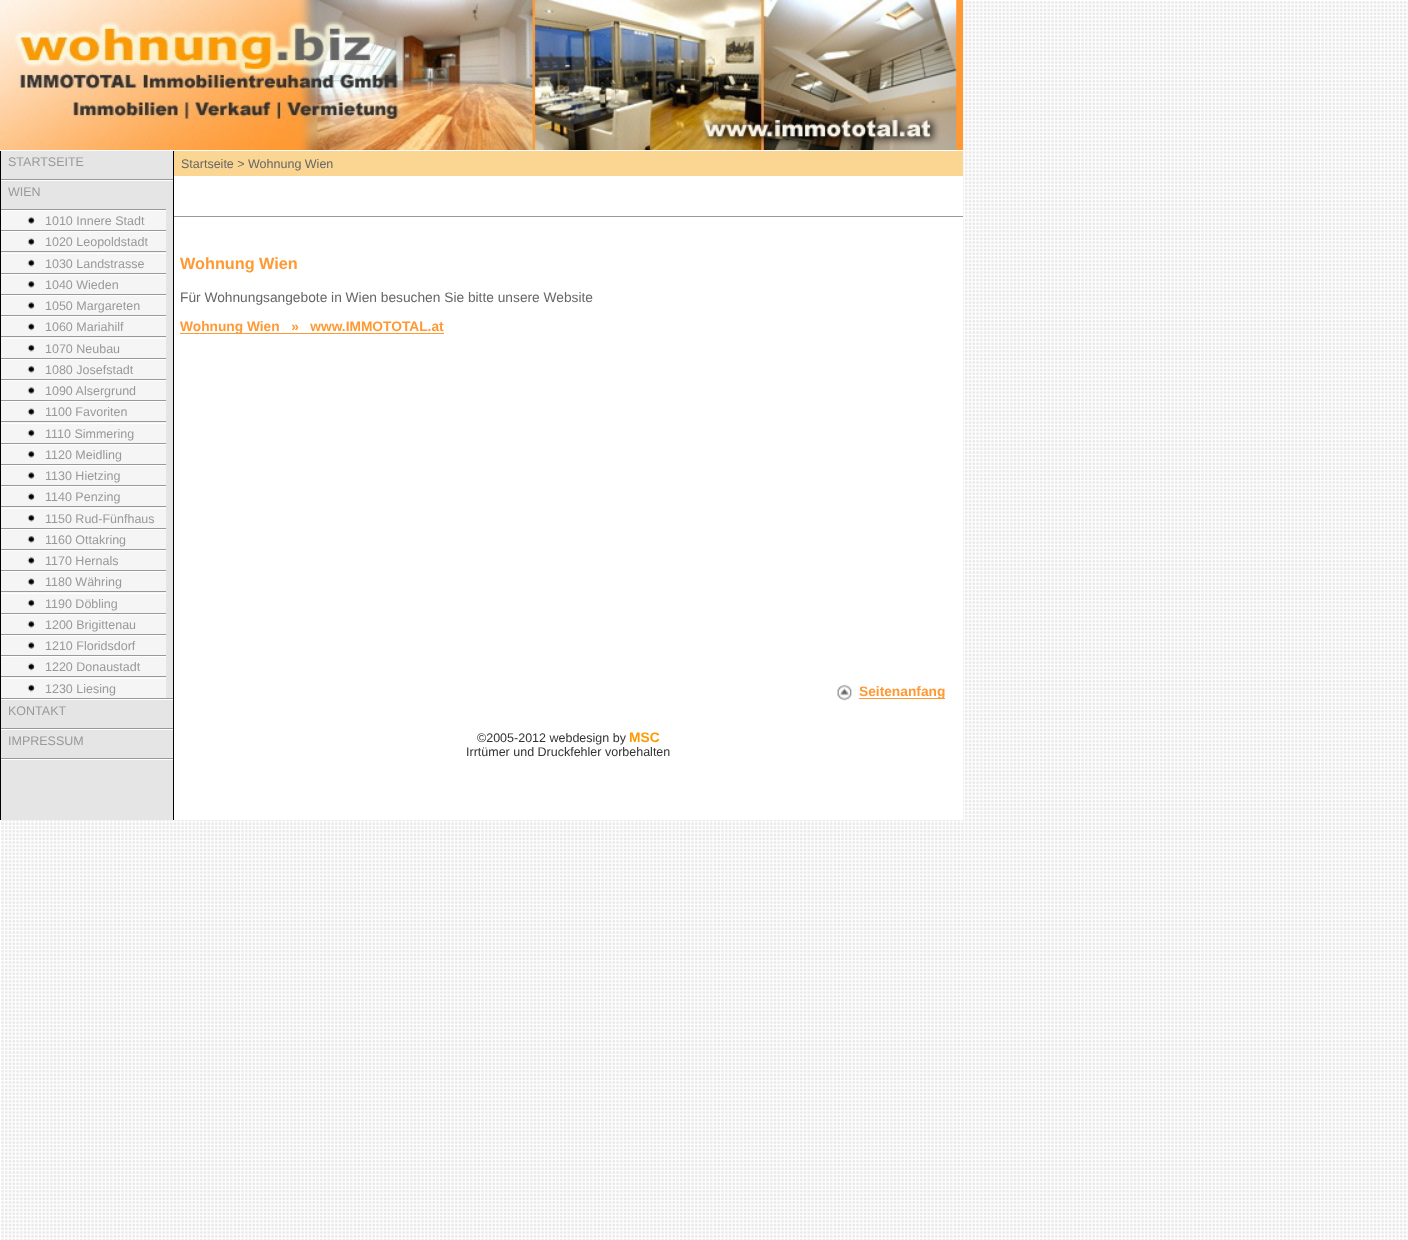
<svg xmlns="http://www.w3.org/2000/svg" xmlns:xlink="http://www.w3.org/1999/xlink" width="1408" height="1240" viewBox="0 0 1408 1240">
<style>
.cls-1{font:12.5px Liberation Sans;fill:#999999}
.cls-2{font:12.5px Liberation Sans;fill:#666666}
.cls-3{font:bold 16.25px Liberation Sans;fill:#ff9933}
.cls-4{font:13.75px Liberation Sans;fill:#666666}
.cls-5{font:bold 13.75px Liberation Sans;fill:#ff9933}
.cls-6{font:12.5px Liberation Sans;fill:#333333}
.cls-7{font:bold 13.75px Liberation Sans;fill:#ff9900}
</style>
<rect width="100%" height="100%" fill="#ffffff"/>
<image xlink:href="image0.png" x="1" y="1" width="1407" height="1239"/>
<rect fill="#ff9933" x="956" y="0" width="7" height="150"/>
<image xlink:href="image1.png" x="0" y="0" width="957" height="150"/>
<rect fill="#ffffff" x="0" y="150" width="963" height="1"/>
<rect fill="#000000" x="0" y="151" width="1" height="669"/>
<rect fill="#e5e5e5" x="1" y="151" width="172" height="669"/>
<rect fill="#999999" x="1" y="179" width="172" height="1"/>
<rect fill="#ffffff" x="1" y="180" width="172" height="1"/>
<rect fill="#f5f5f5" x="1" y="211" width="165" height="487"/>
<rect fill="#999999" x="1" y="209" width="165" height="1"/>
<rect fill="#ffffff" x="1" y="210" width="165" height="1"/>
<image xlink:href="image2.png" x="27" y="217" width="8" height="7"/>
<rect fill="#999999" x="1" y="230" width="165" height="1"/>
<rect fill="#ffffff" x="1" y="231" width="165" height="1"/>
<image xlink:href="image3.png" x="27" y="238" width="8" height="8"/>
<rect fill="#999999" x="1" y="251" width="165" height="1"/>
<rect fill="#ffffff" x="1" y="253" width="165" height="1"/>
<image xlink:href="image4.png" x="27" y="259" width="8" height="8"/>
<rect fill="#999999" x="1" y="273" width="165" height="1"/>
<rect fill="#ffffff" x="1" y="274" width="165" height="1"/>
<image xlink:href="image5.png" x="27" y="281" width="9" height="7"/>
<rect fill="#999999" x="1" y="294" width="165" height="1"/>
<rect fill="#ffffff" x="1" y="295" width="165" height="1"/>
<image xlink:href="image2.png" x="27" y="302" width="8" height="7"/>
<rect fill="#999999" x="1" y="315" width="165" height="1"/>
<rect fill="#ffffff" x="1" y="316" width="165" height="1"/>
<image xlink:href="image3.png" x="27" y="323" width="8" height="8"/>
<rect fill="#999999" x="1" y="336" width="165" height="1"/>
<rect fill="#ffffff" x="1" y="338" width="165" height="1"/>
<image xlink:href="image4.png" x="27" y="344" width="8" height="8"/>
<rect fill="#999999" x="1" y="358" width="165" height="1"/>
<rect fill="#ffffff" x="1" y="359" width="165" height="1"/>
<image xlink:href="image5.png" x="27" y="366" width="9" height="7"/>
<rect fill="#999999" x="1" y="379" width="165" height="1"/>
<rect fill="#ffffff" x="1" y="380" width="165" height="1"/>
<image xlink:href="image2.png" x="27" y="387" width="8" height="7"/>
<rect fill="#999999" x="1" y="400" width="165" height="1"/>
<rect fill="#ffffff" x="1" y="401" width="165" height="1"/>
<image xlink:href="image3.png" x="27" y="408" width="8" height="8"/>
<rect fill="#999999" x="1" y="421" width="165" height="1"/>
<rect fill="#ffffff" x="1" y="423" width="165" height="1"/>
<image xlink:href="image4.png" x="27" y="429" width="8" height="8"/>
<rect fill="#999999" x="1" y="443" width="165" height="1"/>
<rect fill="#ffffff" x="1" y="444" width="165" height="1"/>
<image xlink:href="image5.png" x="27" y="451" width="9" height="7"/>
<rect fill="#999999" x="1" y="464" width="165" height="1"/>
<rect fill="#ffffff" x="1" y="465" width="165" height="1"/>
<image xlink:href="image2.png" x="27" y="472" width="8" height="7"/>
<rect fill="#999999" x="1" y="485" width="165" height="1"/>
<rect fill="#ffffff" x="1" y="486" width="165" height="1"/>
<image xlink:href="image3.png" x="27" y="493" width="8" height="8"/>
<rect fill="#999999" x="1" y="506" width="165" height="1"/>
<rect fill="#ffffff" x="1" y="508" width="165" height="1"/>
<image xlink:href="image4.png" x="27" y="514" width="8" height="8"/>
<rect fill="#999999" x="1" y="528" width="165" height="1"/>
<rect fill="#ffffff" x="1" y="529" width="165" height="1"/>
<image xlink:href="image5.png" x="27" y="536" width="9" height="7"/>
<rect fill="#999999" x="1" y="549" width="165" height="1"/>
<rect fill="#ffffff" x="1" y="550" width="165" height="1"/>
<image xlink:href="image2.png" x="27" y="557" width="8" height="7"/>
<rect fill="#999999" x="1" y="570" width="165" height="1"/>
<rect fill="#ffffff" x="1" y="571" width="165" height="1"/>
<image xlink:href="image3.png" x="27" y="578" width="8" height="8"/>
<rect fill="#999999" x="1" y="591" width="165" height="1"/>
<rect fill="#ffffff" x="1" y="593" width="165" height="1"/>
<image xlink:href="image4.png" x="27" y="599" width="8" height="8"/>
<rect fill="#999999" x="1" y="613" width="165" height="1"/>
<rect fill="#ffffff" x="1" y="614" width="165" height="1"/>
<image xlink:href="image5.png" x="27" y="621" width="9" height="7"/>
<rect fill="#999999" x="1" y="634" width="165" height="1"/>
<rect fill="#ffffff" x="1" y="635" width="165" height="1"/>
<image xlink:href="image2.png" x="27" y="642" width="8" height="7"/>
<rect fill="#999999" x="1" y="655" width="165" height="1"/>
<rect fill="#ffffff" x="1" y="656" width="165" height="1"/>
<image xlink:href="image3.png" x="27" y="663" width="8" height="8"/>
<rect fill="#999999" x="1" y="676" width="165" height="1"/>
<rect fill="#ffffff" x="1" y="678" width="165" height="1"/>
<image xlink:href="image4.png" x="27" y="684" width="8" height="8"/>
<rect fill="#999999" x="1" y="698" width="172" height="1"/>
<rect fill="#ffffff" x="1" y="699" width="172" height="1"/>
<rect fill="#999999" x="1" y="728" width="172" height="1"/>
<rect fill="#ffffff" x="1" y="729" width="172" height="1"/>
<rect fill="#999999" x="1" y="758" width="172" height="1"/>
<rect fill="#ffffff" x="1" y="759" width="172" height="1"/>
<rect fill="#000000" x="173" y="151" width="1" height="669"/>
<rect fill="#fad692" x="174" y="151" width="789" height="25"/>
<rect fill="#ffffff" x="174" y="176" width="789" height="644"/>
<rect fill="#999999" x="174" y="216" width="789" height="1"/>
<rect fill="#ff9933" x="180" y="333" width="264" height="1"/>
<image xlink:href="image6.png" x="837" y="684" width="15" height="17"/>
<rect fill="#ff9933" x="859" y="698" width="86" height="1"/>
<text class="cls-1" x="8" y="166">STARTSEITE</text>
<text class="cls-1" x="8" y="196">WIEN</text>
<text class="cls-1"><tspan x="45" y="225">1010 Innere Stadt</tspan><tspan x="45" y="246">1020 Leopoldstadt</tspan><tspan x="45" y="268">1030 Landstrasse</tspan><tspan x="45" y="289">1040 Wieden</tspan><tspan x="45" y="310">1050 Margareten</tspan><tspan x="45" y="331">1060 Mariahilf</tspan><tspan x="45" y="353">1070 Neubau</tspan><tspan x="45" y="374">1080 Josefstadt</tspan><tspan x="45" y="395">1090 Alsergrund</tspan><tspan x="45" y="416">1100 Favoriten</tspan><tspan x="45" y="438">1110 Simmering</tspan><tspan x="45" y="459">1120 Meidling</tspan><tspan x="45" y="480">1130 Hietzing</tspan><tspan x="45" y="501">1140 Penzing</tspan><tspan x="45" y="523">1150 Rud-Fünfhaus</tspan><tspan x="45" y="544">1160 Ottakring</tspan><tspan x="45" y="565">1170 Hernals</tspan><tspan x="45" y="586">1180 Währing</tspan><tspan x="45" y="608">1190 Döbling</tspan><tspan x="45" y="629">1200 Brigittenau</tspan><tspan x="45" y="650">1210 Floridsdorf</tspan><tspan x="45" y="671">1220 Donaustadt</tspan><tspan x="45" y="693">1230 Liesing</tspan></text>
<text class="cls-1" x="8" y="715">KONTAKT</text>
<text class="cls-1" x="8" y="745">IMPRESSUM</text>
<text class="cls-2" x="181" y="168">Startseite &gt; Wohnung Wien</text>
<text class="cls-3" x="180" y="269">Wohnung Wien</text>
<text class="cls-4" x="180" y="302">Für Wohnungsangebote in Wien besuchen Sie bitte unsere Website</text>
<text class="cls-5" xml:space="preserve" x="180" y="331">Wohnung Wien   »   www.IMMOTOTAL.at</text>
<text class="cls-5" x="859" y="696">Seitenanfang</text>
<text class="cls-6" x="477" y="742">©2005-2012 webdesign by</text>
<text class="cls-7" x="629" y="742">MSC</text>
<text class="cls-6" x="466" y="756">Irrtümer und Druckfehler vorbehalten</text>
</svg>
